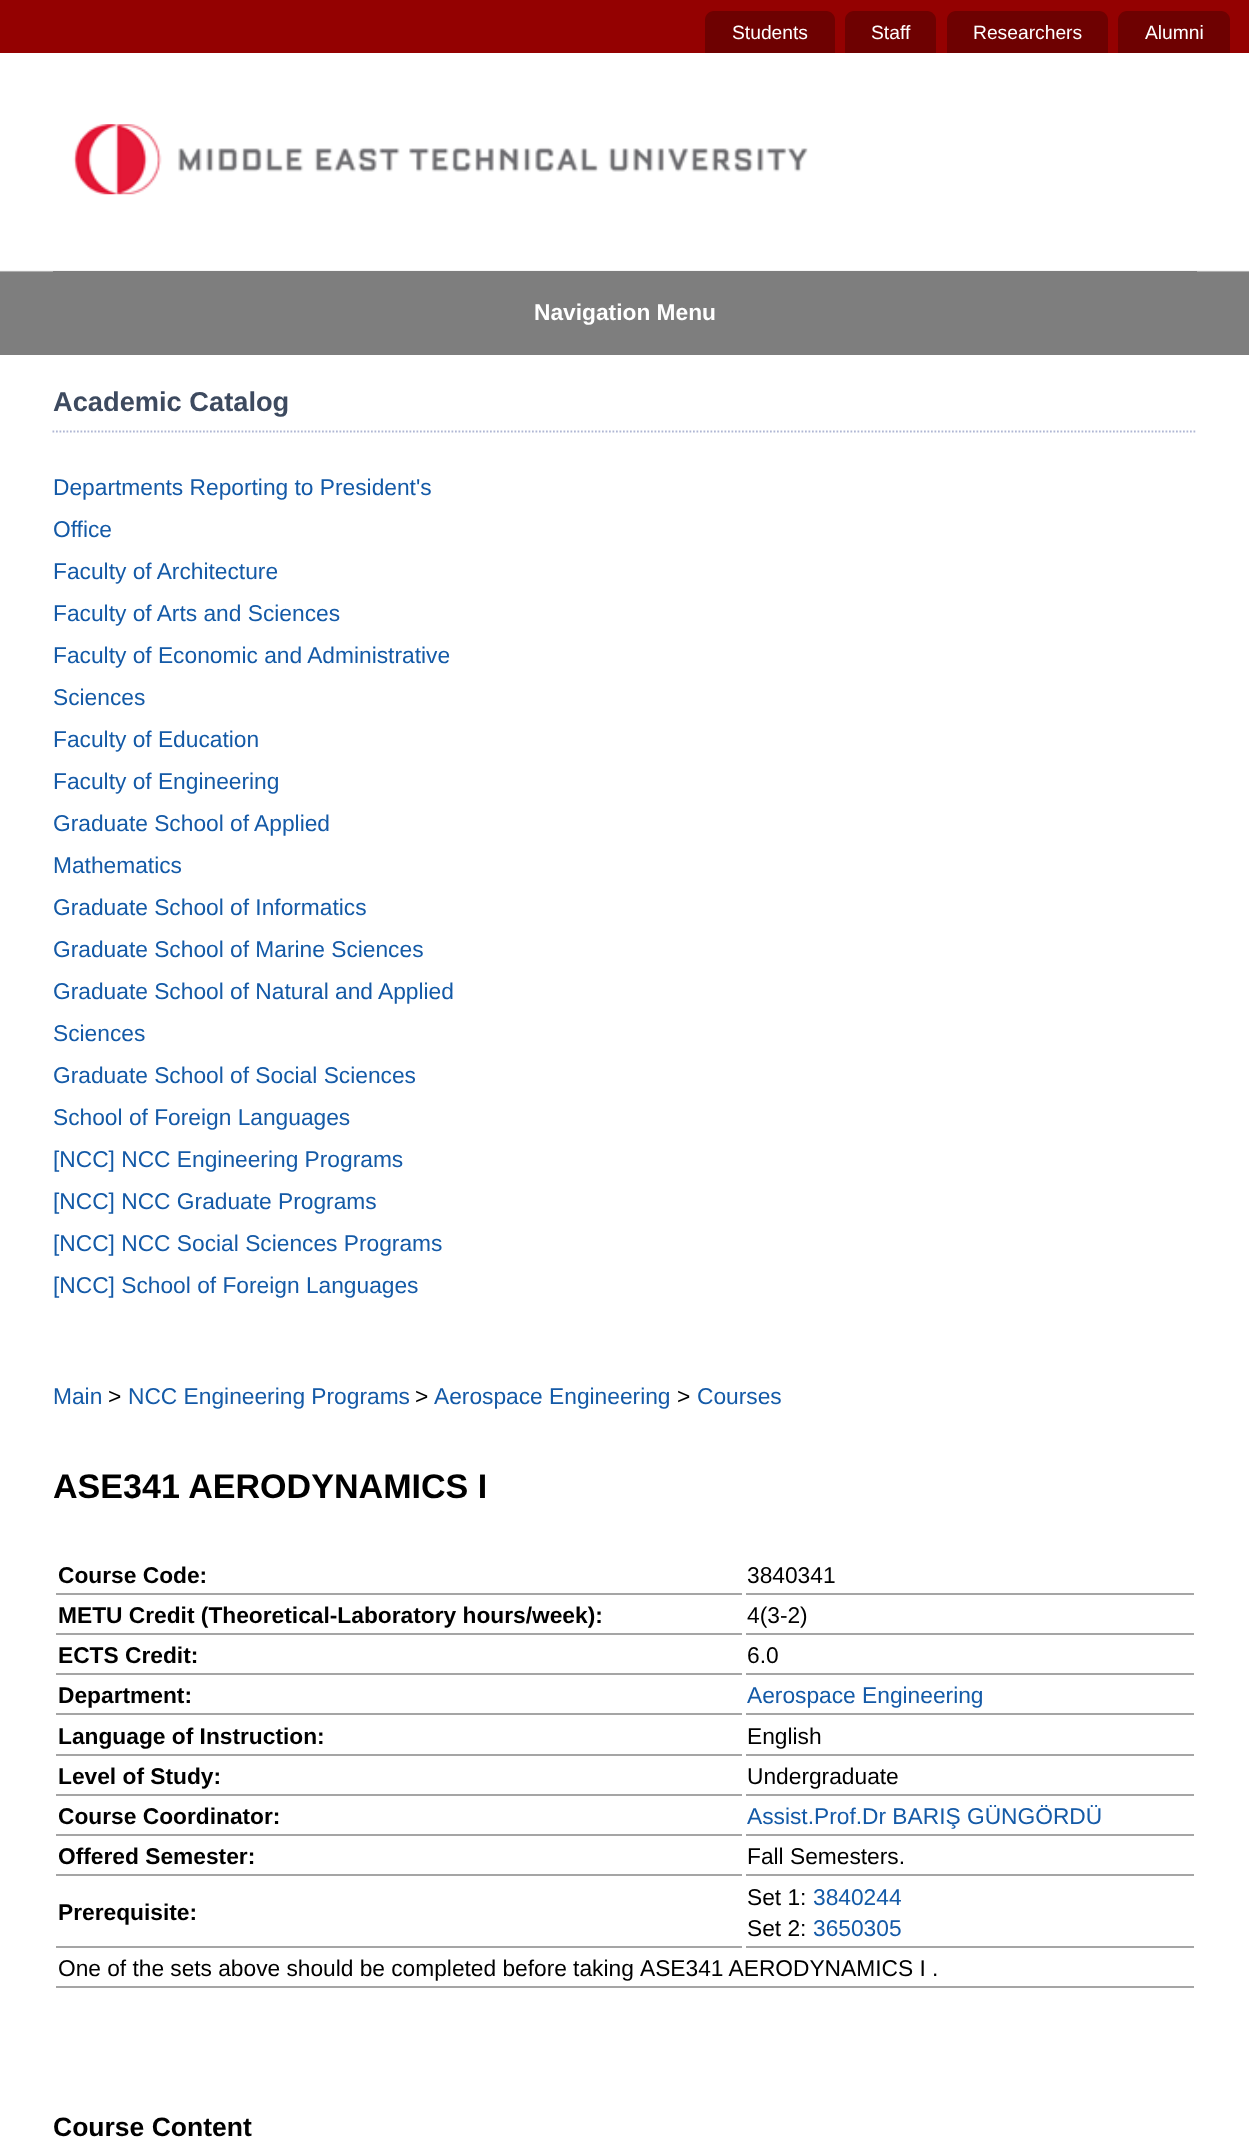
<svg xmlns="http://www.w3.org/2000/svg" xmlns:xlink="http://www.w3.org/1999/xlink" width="1249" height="2151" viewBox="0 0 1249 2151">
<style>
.cls-1{font:19.25px Liberation Sans;fill:#ffffff}
.cls-2{font:bold 22.75px Liberation Sans;fill:#ffffff}
.cls-3{font:bold 27.25px Liberation Sans;fill:#3d4a5f}
.cls-4{font:22.75px Liberation Sans;fill:#145aa7}
.cls-5{font:22.75px Liberation Sans;fill:#000000}
.cls-6{font:bold 34.1px Liberation Sans;fill:#000000}
.cls-7{font:bold 22.75px Liberation Sans;fill:#000000}
.cls-8{font:bold 26.5px Liberation Sans;fill:#000000}
</style>
<rect width="100%" height="100%" fill="#940101"/>
<path fill="#6e0101" d="M714 11H826C831 11 835 15 835 20V53H705V20C705 15 709 11 714 11Z"/>
<path fill="#6e0101" d="M854 11H927C932 11 936 15 936 20V53H845V20C845 15 849 11 854 11Z"/>
<path fill="#6e0101" d="M956 11H1099C1104 11 1108 15 1108 20V53H947V20C947 15 951 11 956 11Z"/>
<path fill="#6e0101" d="M1127 11H1221C1226 11 1230 15 1230 20V53H1118V20C1118 15 1122 11 1127 11Z"/>
<rect fill="#ffffff" x="0" y="53" width="1249" height="219"/>
<image xlink:href="image0.png" x="0" y="270" width="1249" height="85"/>
<image xlink:href="image1.png" x="73" y="124" width="735" height="71"/>
<rect fill="#7e7e7e" x="53" y="271" width="1144" height="1"/>
<rect fill="#ffffff" x="0" y="355" width="1249" height="1796"/>
<path fill="none" stroke="#b0b7d4" stroke-width="1.8" stroke-dasharray="1.75 1.75" d="M52.5 431.5H1197"/>
<rect fill="#a5a5a5" x="56" y="1593" width="686" height="2"/>
<rect fill="#a5a5a5" x="746" y="1593" width="448" height="2"/>
<rect fill="#a5a5a5" x="56" y="1633" width="686" height="2"/>
<rect fill="#a5a5a5" x="746" y="1633" width="448" height="2"/>
<rect fill="#a5a5a5" x="56" y="1673" width="686" height="2"/>
<rect fill="#a5a5a5" x="746" y="1673" width="448" height="2"/>
<rect fill="#a5a5a5" x="56" y="1713" width="686" height="2"/>
<rect fill="#a5a5a5" x="746" y="1713" width="448" height="2"/>
<rect fill="#a5a5a5" x="56" y="1754" width="686" height="2"/>
<rect fill="#a5a5a5" x="746" y="1754" width="448" height="2"/>
<rect fill="#a5a5a5" x="56" y="1794" width="686" height="2"/>
<rect fill="#a5a5a5" x="746" y="1794" width="448" height="2"/>
<rect fill="#a5a5a5" x="56" y="1834" width="686" height="2"/>
<rect fill="#a5a5a5" x="746" y="1834" width="448" height="2"/>
<rect fill="#a5a5a5" x="56" y="1874" width="686" height="2"/>
<rect fill="#a5a5a5" x="746" y="1874" width="448" height="2"/>
<rect fill="#a5a5a5" x="56" y="1946" width="686" height="2"/>
<rect fill="#a5a5a5" x="746" y="1946" width="448" height="2"/>
<rect fill="#a5a5a5" x="56" y="1986" width="1138" height="2"/>
<text class="cls-1" x="732" y="39">Students</text>
<text class="cls-1" x="871" y="39">Staff</text>
<text class="cls-1" x="973" y="39">Researchers</text>
<text class="cls-1" x="1145" y="39">Alumni</text>
<text class="cls-2" x="534" y="320">Navigation Menu</text>
<text class="cls-3" x="53" y="411">Academic Catalog</text>
<text class="cls-4"><tspan x="53" y="495">Departments Reporting to President's</tspan><tspan x="53" y="537">Office</tspan><tspan x="53" y="579">Faculty of Architecture</tspan><tspan x="53" y="621">Faculty of Arts and Sciences</tspan><tspan x="53" y="663">Faculty of Economic and Administrative</tspan><tspan x="53" y="705">Sciences</tspan><tspan x="53" y="747">Faculty of Education</tspan><tspan x="53" y="789">Faculty of Engineering</tspan><tspan x="53" y="831">Graduate School of Applied</tspan><tspan x="53" y="873">Mathematics</tspan><tspan x="53" y="915">Graduate School of Informatics</tspan><tspan x="53" y="957">Graduate School of Marine Sciences</tspan><tspan x="53" y="999">Graduate School of Natural and Applied</tspan><tspan x="53" y="1041">Sciences</tspan><tspan x="53" y="1083">Graduate School of Social Sciences</tspan><tspan x="53" y="1125">School of Foreign Languages</tspan><tspan x="53" y="1167">[NCC] NCC Engineering Programs</tspan><tspan x="53" y="1209">[NCC] NCC Graduate Programs</tspan><tspan x="53" y="1251">[NCC] NCC Social Sciences Programs</tspan><tspan x="53" y="1293">[NCC] School of Foreign Languages</tspan></text>
<text class="cls-4" x="53" y="1404">Main</text>
<text class="cls-5" x="108" y="1404">&gt;</text>
<text class="cls-4" x="128" y="1404">NCC Engineering Programs</text>
<text class="cls-5" x="415" y="1404">&gt;</text>
<text class="cls-4" x="434" y="1404">Aerospace Engineering</text>
<text class="cls-5" x="677" y="1404">&gt;</text>
<text class="cls-4" x="697" y="1404">Courses</text>
<text class="cls-6" x="53" y="1498">ASE341 AERODYNAMICS I</text>
<text class="cls-7" x="58" y="1583">Course Code:</text>
<text class="cls-5" x="747" y="1583">3840341</text>
<text class="cls-7" x="58" y="1623">METU Credit (Theoretical-Laboratory hours/week):</text>
<text class="cls-5" x="747" y="1623">4(3-2)</text>
<text class="cls-7" x="58" y="1663">ECTS Credit:</text>
<text class="cls-5" x="747" y="1663">6.0</text>
<text class="cls-7" x="58" y="1703">Department:</text>
<text class="cls-4" x="747" y="1703">Aerospace Engineering</text>
<text class="cls-7" x="58" y="1744">Language of Instruction:</text>
<text class="cls-5" x="747" y="1744">English</text>
<text class="cls-7" x="58" y="1784">Level of Study:</text>
<text class="cls-5" x="747" y="1784">Undergraduate</text>
<text class="cls-7" x="58" y="1824">Course Coordinator:</text>
<text class="cls-4" x="747" y="1824">Assist.Prof.Dr BARIŞ GÜNGÖRDÜ</text>
<text class="cls-7" x="58" y="1864">Offered Semester:</text>
<text class="cls-5" x="747" y="1864">Fall Semesters.</text>
<text class="cls-7" x="58" y="1920">Prerequisite:</text>
<text class="cls-5" x="747" y="1905">Set 1:</text>
<text class="cls-4" x="813" y="1905">3840244</text>
<text class="cls-5" x="747" y="1936">Set 2:</text>
<text class="cls-4" x="813" y="1936">3650305</text>
<text class="cls-5" x="58" y="1976" word-spacing="-0.1">One of the sets above should be completed before taking</text>
<text class="cls-5" x="640" y="1976">ASE341 AERODYNAMICS I .</text>
<text class="cls-8" x="53" y="2136">Course Content</text>
</svg>
